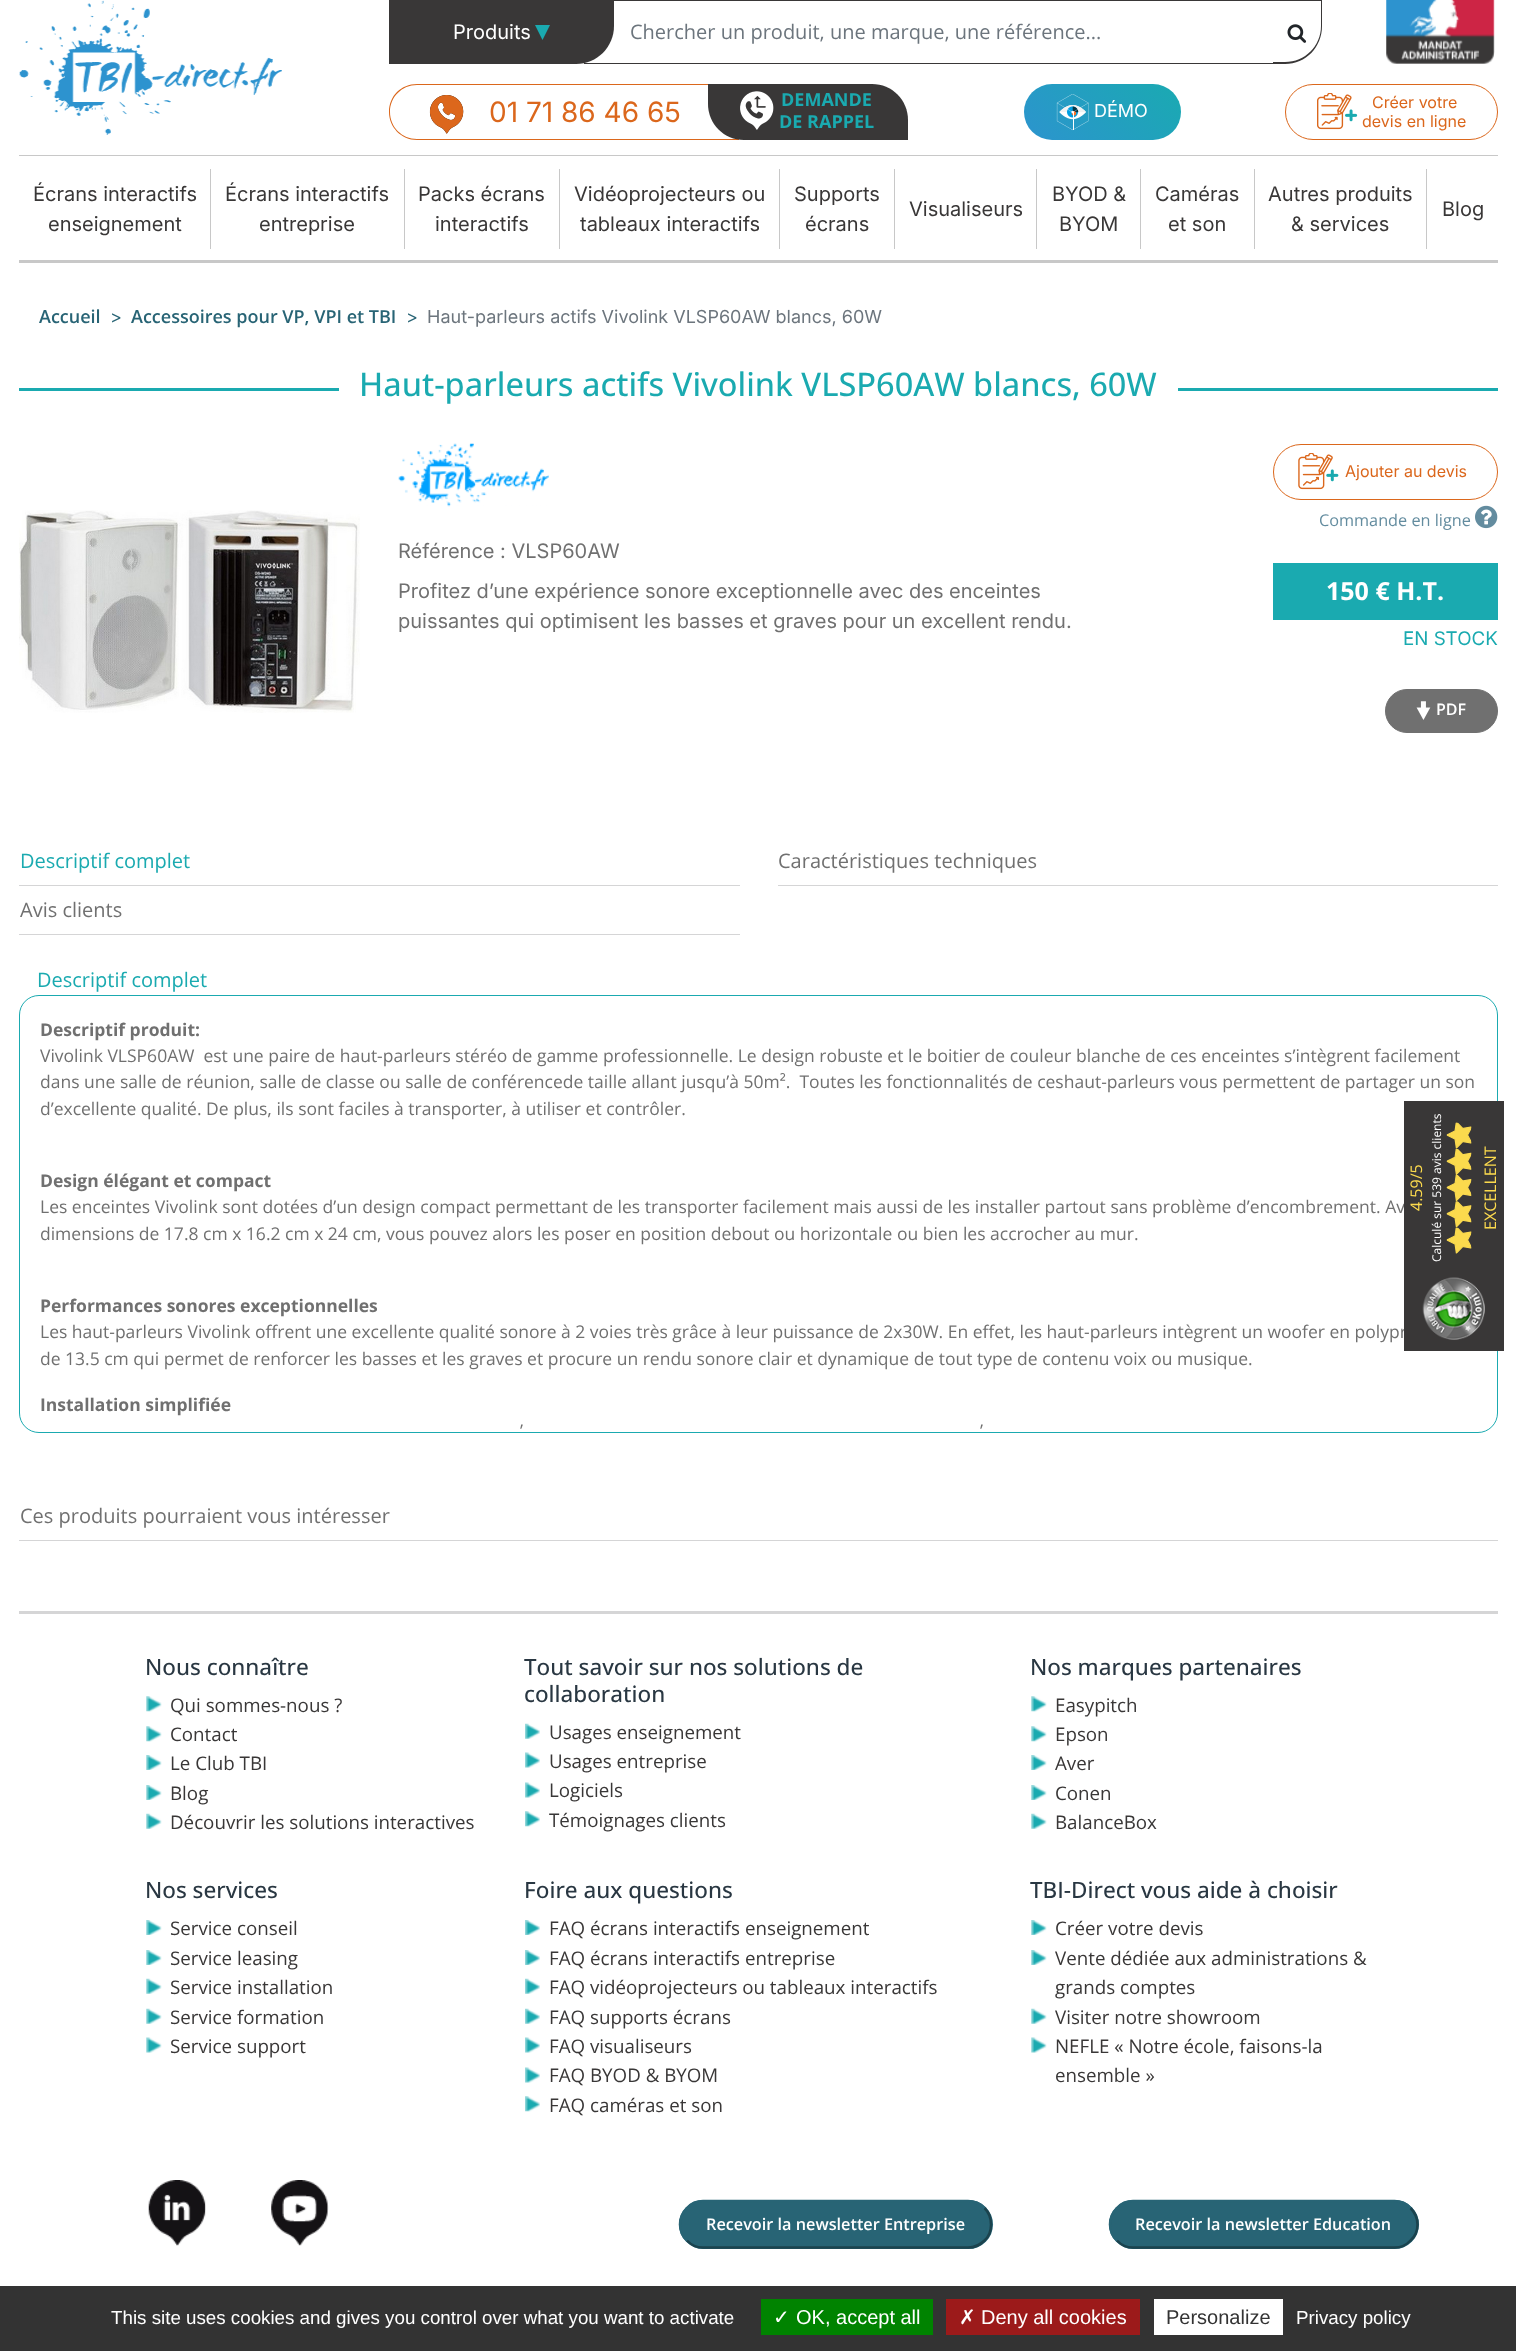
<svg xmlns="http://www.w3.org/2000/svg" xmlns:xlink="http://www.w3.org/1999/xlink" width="1516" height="2351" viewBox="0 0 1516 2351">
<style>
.cls-1{font:20px Inter;fill:#ffffff}
.cls-2{font:20px Open Sans;fill:#6c757d}
.cls-3{font:28px Inter;fill:#db671c}
.cls-4{font:bold 18px Open Sans;fill:#1aaab0}
.cls-5{font:18px Inter;fill:#ffffff}
.cls-6{font:16px Inter;fill:#db671c}
.cls-7{font:20px Inter;fill:#393737}
.cls-8{font:600 18px Open Sans;fill:#286475}
.cls-9{font:18px Inter;fill:#286475}
.cls-10{font:18px Inter;fill:#6c757d}
.cls-11{font:500 32.5px Open Sans;fill:#1aaab0}
.cls-12{font:20px Inter;fill:#707070}
.cls-13{font:16.25px Open Sans;fill:#638c9f}
.cls-14{font:bold 25px Open Sans;fill:#ffffff}
.cls-15{font:18.75px Inter;fill:#1aaab0}
.cls-16{font:600 16px Open Sans;fill:#ffffff}
.cls-17{font:20px Open Sans;fill:#1aaab0}
.cls-18{font:20px Open Sans;fill:#707070}
.cls-19{font:bold 17.5px Open Sans;fill:#707070}
.cls-20{font:17.5px Open Sans;fill:#707070}
.cls-21{font:16px Open Sans;fill:#fcda4d}
.cls-22{font:12px Open Sans;fill:#ffffff}
.cls-23{font:500 22.5px Open Sans;fill:#293742}
.cls-24{font:18.75px Open Sans;fill:#393737}
.cls-25{font:600 16.25px Open Sans;fill:#ffffff}
.cls-26{font:18.75px Liberation Sans;fill:#ffffff}
.cls-27{font:20px DejaVu Sans;fill:#ffffff}
.cls-28{font:20px Liberation Sans;fill:#ffffff}
.cls-29{font:20px Liberation Sans;fill:#333333}
</style>
<defs>
<linearGradient id="g1" gradientUnits="userSpaceOnUse" x1="1049" y1="165" x2="1156" y2="58"><stop offset="0" stop-color="#2c94ce"/><stop offset="1" stop-color="#1aaab1"/></linearGradient>
</defs>
<rect width="100%" height="100%" fill="#ffffff"/>
<image xlink:href="image0.png" x="19" y="0" width="263" height="135"/>
<path fill="#393737" fill-rule="evenodd" d="M1272 0H1322V26C1322 47 1306 64 1285 64H1272ZM1272 1H1321V26C1321 46 1305 62 1285 62H1272Z"/>
<rect fill="#393737" x="584" y="63" width="689" height="1"/>
<rect fill="#393737" x="584" y="62" width="1" height="2"/>
<path fill="#393737" d="M389 0H614V26C614 47 597 64 576 64H389Z"/>
<path fill="#1aaab0" d="M535 25H550L542.5 40Z"/>
<rect fill="#ffffff" x="1272" y="62" width="1" height="1"/>
<rect fill="#393737" x="614" y="0" width="659" height="1"/>
<image xlink:href="image1.png" x="1287" y="24" width="20" height="19"/>
<image xlink:href="image2.png" x="1386" y="0" width="109" height="64"/>
<path fill="#db671c" fill-rule="evenodd" d="M417 84H739V140H417C401 140 389 127 389 112C389 96 401 84 417 84ZM417 85H739V139H417C402 139 390 127 390 112C390 97 402 85 417 85Z"/>
<image xlink:href="image3.png" x="429" y="95" width="35" height="39"/>
<path fill="#393737" d="M708 84H872C892 84 908 100 908 120V140H744C724 140 708 124 708 104Z"/>
<image xlink:href="image4.png" x="740" y="91" width="34" height="39"/>
<rect fill="url(#g1)" x="1024" y="84" width="157" height="56" rx="28"/>
<image xlink:href="image5.png" x="1056" y="94" width="33" height="37"/>
<rect fill="none" stroke="#db671c" x="1285.5" y="84.5" width="212" height="55" rx="27.5"/>
<image xlink:href="image6.png" x="1317" y="93" width="41" height="37"/>
<rect fill="#c8c8c8" x="19" y="155" width="1479" height="1"/>
<rect fill="#c8c8c8" x="210" y="169" width="1" height="80"/>
<rect fill="#c8c8c8" x="404" y="169" width="1" height="80"/>
<rect fill="#c8c8c8" x="559" y="169" width="1" height="80"/>
<rect fill="#c8c8c8" x="779" y="169" width="1" height="80"/>
<rect fill="#c8c8c8" x="894" y="169" width="1" height="80"/>
<rect fill="#c8c8c8" x="1036" y="169" width="1" height="80"/>
<rect fill="#c8c8c8" x="1140" y="169" width="1" height="80"/>
<rect fill="#c8c8c8" x="1254" y="169" width="1" height="80"/>
<rect fill="#c8c8c8" x="1426" y="169" width="1" height="80"/>
<rect fill="#c8c8c8" x="19" y="260" width="1479" height="3"/>
<rect fill="#1aaab0" x="19" y="388" width="320" height="3"/>
<rect fill="#1aaab0" x="1178" y="388" width="320" height="3"/>
<image xlink:href="image7.png" x="19" y="510" width="341" height="203"/>
<image xlink:href="image8.png" x="398" y="443" width="151" height="64"/>
<rect fill="none" stroke="#db671c" x="1273.5" y="444.5" width="224" height="55" rx="27.5"/>
<image xlink:href="image9.png" x="1298" y="453" width="41" height="37"/>
<image xlink:href="image10.png" x="1475" y="505" width="23" height="24"/>
<rect fill="#1aaab0" x="1273" y="563" width="225" height="57"/>
<rect fill="#707070" stroke="#707070" x="1385.5" y="689.5" width="112" height="43" rx="21.5"/>
<image xlink:href="image11.png" x="1416" y="701" width="15" height="19"/>
<rect fill="#d5d5d6" x="19" y="885" width="721" height="1"/>
<rect fill="#d5d5d6" x="778" y="885" width="720" height="1"/>
<rect fill="#d5d5d6" x="19" y="934" width="721" height="1"/>
<rect fill="none" stroke="#1aaab0" x="19.5" y="995.5" width="1478" height="437" rx="19.5"/>
<rect fill="#d5d5d6" x="19" y="1540" width="1479" height="1"/>
<rect fill="#d5d5d6" x="19" y="1611" width="1479" height="3"/>
<image xlink:href="image18.png" x="146" y="1696" width="16" height="16"/>
<image xlink:href="image18.png" x="146" y="1726" width="16" height="16"/>
<image xlink:href="image19.png" x="146" y="1755" width="16" height="15"/>
<image xlink:href="image19.png" x="146" y="1785" width="16" height="15"/>
<image xlink:href="image20.png" x="146" y="1813" width="16" height="16"/>
<image xlink:href="image21.png" x="525" y="1723" width="15" height="16"/>
<image xlink:href="image22.png" x="525" y="1752" width="15" height="16"/>
<image xlink:href="image23.png" x="525" y="1782" width="15" height="16"/>
<image xlink:href="image24.png" x="525" y="1811" width="15" height="16"/>
<image xlink:href="image18.png" x="1031" y="1696" width="16" height="16"/>
<image xlink:href="image18.png" x="1031" y="1726" width="16" height="16"/>
<image xlink:href="image19.png" x="1031" y="1755" width="16" height="15"/>
<image xlink:href="image19.png" x="1031" y="1785" width="16" height="15"/>
<image xlink:href="image20.png" x="1031" y="1813" width="16" height="16"/>
<image xlink:href="image19.png" x="146" y="1920" width="16" height="15"/>
<image xlink:href="image19.png" x="146" y="1950" width="16" height="15"/>
<image xlink:href="image20.png" x="146" y="1978" width="16" height="16"/>
<image xlink:href="image20.png" x="146" y="2008" width="16" height="16"/>
<image xlink:href="image25.png" x="146" y="2037" width="16" height="16"/>
<image xlink:href="image26.png" x="525" y="1920" width="15" height="15"/>
<image xlink:href="image26.png" x="525" y="1950" width="15" height="15"/>
<image xlink:href="image21.png" x="525" y="1978" width="15" height="16"/>
<image xlink:href="image21.png" x="525" y="2008" width="15" height="16"/>
<image xlink:href="image22.png" x="525" y="2037" width="15" height="16"/>
<image xlink:href="image22.png" x="525" y="2067" width="15" height="16"/>
<image xlink:href="image24.png" x="525" y="2096" width="15" height="16"/>
<image xlink:href="image19.png" x="1031" y="1920" width="16" height="15"/>
<image xlink:href="image19.png" x="1031" y="1950" width="16" height="15"/>
<image xlink:href="image20.png" x="1031" y="2008" width="16" height="16"/>
<image xlink:href="image25.png" x="1031" y="2037" width="16" height="16"/>
<image xlink:href="image27.png" x="148" y="2180" width="58" height="66"/>
<image xlink:href="image28.png" x="271" y="2180" width="58" height="66"/>
<rect fill="#286475" x="679" y="2200" width="314" height="49" rx="24.5"/>
<path fill="none" stroke="#1b434e" stroke-width="2.5" d="M984.5 2208C989 2212.5 991 2218 991 2224.5C991 2230.5 989 2236.5 984.5 2240.5C980 2245 974.5 2247.5 968 2247.5H703C697 2247.5 691 2245 687 2240.5"/>
<path fill="none" stroke="#286475" stroke-width="2.5" d="M687 2240.5C682.5 2236.5 680 2230.5 680 2224.5C680 2218 682.5 2212.5 687 2208C691 2203.5 697 2201 703 2201H968C974.5 2201 980 2203.5 984.5 2208"/>
<rect fill="#286475" x="1109" y="2200" width="310" height="49" rx="24.5"/>
<path fill="none" stroke="#1b434e" stroke-width="2.5" d="M1410.5 2208C1415 2212.5 1417.5 2218 1417.5 2224.5C1417.5 2230.5 1415 2236.5 1410.5 2240.5C1406.5 2245 1400.5 2247.5 1394.5 2247.5H1133C1127 2247.5 1121 2245 1117 2240.5"/>
<path fill="none" stroke="#286475" stroke-width="2.5" d="M1117 2240.5C1112.5 2236.5 1110 2230.5 1110 2224.5C1110 2218 1112.5 2212.5 1117 2208C1121 2203.5 1127 2201 1133 2201H1394.5C1400.5 2201 1406.5 2203.5 1410.5 2208"/>
<rect fill="#333333" x="0" y="2286" width="1516" height="65"/>
<rect fill="#008300" x="761" y="2299" width="172" height="36"/>
<rect fill="#9c1a1a" x="946" y="2299" width="194" height="36"/>
<rect fill="#ffffff" x="1154" y="2299" width="129" height="36"/>
<text class="cls-1" x="453" y="39">Produits</text>
<text class="cls-2" x="630" y="39">Chercher un produit, une marque, une référence...</text>
<text class="cls-3" x="489" y="122">01 71 86 46 65</text>
<text class="cls-4" x="781" y="106">DEMANDE</text>
<text class="cls-4" x="779" y="128">DE RAPPEL</text>
<text class="cls-5" x="1094" y="117">DÉMO</text>
<text class="cls-6" x="1372" y="108">Créer votre</text>
<text class="cls-6" x="1362" y="127">devis en ligne</text>
<text class="cls-7" x="33" y="201">Écrans interactifs</text>
<text class="cls-7" x="48" y="231">enseignement</text>
<text class="cls-7" x="225" y="201">Écrans interactifs</text>
<text class="cls-7" x="259" y="231">entreprise</text>
<text class="cls-7" x="418" y="201">Packs écrans</text>
<text class="cls-7" x="435" y="231">interactifs</text>
<text class="cls-7" x="574" y="201">Vidéoprojecteurs ou</text>
<text class="cls-7" x="580" y="231">tableaux interactifs</text>
<text class="cls-7" x="794" y="201">Supports</text>
<text class="cls-7" x="805" y="231">écrans</text>
<text class="cls-7" x="909" y="216">Visualiseurs</text>
<text class="cls-7" x="1052" y="201">BYOD &amp;</text>
<text class="cls-7" x="1059" y="231">BYOM</text>
<text class="cls-7" x="1155" y="201">Caméras</text>
<text class="cls-7" x="1168" y="231">et son</text>
<text class="cls-7" x="1268" y="201">Autres produits</text>
<text class="cls-7" x="1291" y="231">&amp; services</text>
<text class="cls-7" x="1442" y="216">Blog</text>
<text class="cls-8" x="39" y="323">Accueil</text>
<text class="cls-9" x="110" y="323">&gt;</text>
<text class="cls-8" x="131" y="323">Accessoires pour VP, VPI et TBI</text>
<text class="cls-9" x="406" y="323">&gt;</text>
<text class="cls-10" x="427" y="323">Haut-parleurs actifs Vivolink VLSP60AW blancs, 60W</text>
<text class="cls-11" x="359" y="396">Haut-parleurs actifs Vivolink VLSP60AW blancs, 60W</text>
<text class="cls-12" x="398" y="558">Référence : VLSP60AW</text>
<text class="cls-12"><tspan x="398" y="598">Profitez d’une expérience sonore exceptionnelle avec des enceintes</tspan><tspan x="398" y="628">puissantes qui optimisent les basses et graves pour un excellent rendu.</tspan></text>
<text class="cls-6" x="1345" y="477">Ajouter au devis</text>
<text class="cls-13" x="1319" y="526">Commande en ligne</text>
<text class="cls-14" x="1326" y="600">150 € H.T.</text>
<text class="cls-15" x="1403" y="645">EN STOCK</text>
<text class="cls-16" x="1436" y="715">PDF</text>
<text class="cls-17" x="20" y="868">Descriptif complet</text>
<text class="cls-18" x="778" y="868">Caractéristiques techniques</text>
<text class="cls-18" x="20" y="917">Avis clients</text>
<text class="cls-17" x="37" y="987">Descriptif complet</text>
<text class="cls-19" x="40" y="1036">Descriptif produit:</text>
<text class="cls-20" xml:space="preserve"><tspan x="40" y="1062">Vivolink VLSP60AW  est une paire de haut-parleurs stéréo de gamme professionnelle. Le design robuste et le boitier de couleur blanche de ces enceintes s’intègrent facilement</tspan><tspan x="40" y="1088">dans une salle de réunion, salle de classe ou salle de conférencede taille allant jusqu’à 50m².  Toutes les fonctionnalités de ceshaut-parleurs vous permettent de partager un son</tspan><tspan x="40" y="1115">d’excellente qualité. De plus, ils sont faciles à transporter, à utiliser et contrôler.</tspan></text>
<text class="cls-19" x="40" y="1187">Design élégant et compact</text>
<text class="cls-20"><tspan x="40" y="1213">Les enceintes Vivolink sont dotées d’un design compact permettant de les transporter facilement mais aussi de les installer partout sans problème d’encombrement. Av</tspan><tspan x="40" y="1240">dimensions de 17.8 cm x 16.2 cm x 24 cm, vous pouvez alors les poser en position debout ou horizontale ou bien les accrocher au mur.</tspan></text>
<text class="cls-19" x="40" y="1312">Performances sonores exceptionnelles</text>
<text class="cls-20"><tspan x="40" y="1338">Les haut-parleurs Vivolink offrent une excellente qualité sonore à 2 voies très grâce à leur puissance de 2x30W. En effet, les haut-parleurs intègrent un woofer en polypr</tspan><tspan x="40" y="1365">de 13.5 cm qui permet de renforcer les basses et les graves et procure un rendu sonore clair et dynamique de tout type de contenu voix ou musique.</tspan></text>
<text class="cls-19" x="40" y="1411">Installation simplifiée</text>
<text class="cls-20" x="520" y="1437">’</text>
<text class="cls-20" x="980" y="1437">’</text>
<text class="cls-18" x="20" y="1523">Ces produits pourraient vous intéresser</text>
<rect fill="#393737" x="1404" y="1101" width="100" height="250"/>
<text class="cls-21" x="1422" y="1211" transform="rotate(-90 1422 1211)">4.59/5</text>
<text class="cls-22" x="1441" y="1262" transform="rotate(-90 1441 1262)">Calculé sur 539 avis clients</text>
<image xlink:href="image13.png" x="1446" y="1148" width="26" height="27"/>
<image xlink:href="image12.png" x="1446" y="1122" width="26" height="27"/>
<image xlink:href="image14.png" x="1446" y="1175" width="26" height="26"/>
<image xlink:href="image16.png" x="1446" y="1227" width="26" height="27"/>
<image xlink:href="image15.png" x="1446" y="1201" width="26" height="27"/>
<text class="cls-21" x="1496" y="1230" transform="rotate(-90 1496 1230)">EXCELLENT</text>
<image xlink:href="image17.png" x="1422" y="1277" width="63" height="63"/>
<text class="cls-23" x="145" y="1675">Nous connaître</text>
<text class="cls-24"><tspan x="170" y="1712">Qui sommes-nous ?</tspan><tspan x="170" y="1741">Contact</tspan><tspan x="170" y="1770">Le Club TBI</tspan><tspan x="170" y="1800">Blog</tspan><tspan x="170" y="1829">Découvrir les solutions interactives</tspan></text>
<text class="cls-23"><tspan x="524" y="1675">Tout savoir sur nos solutions de</tspan><tspan x="524" y="1702">collaboration</tspan></text>
<text class="cls-24"><tspan x="549" y="1739">Usages enseignement</tspan><tspan x="549" y="1768">Usages entreprise</tspan><tspan x="549" y="1797">Logiciels</tspan><tspan x="549" y="1827">Témoignages clients</tspan></text>
<text class="cls-23" x="1030" y="1675">Nos marques partenaires</text>
<text class="cls-24"><tspan x="1055" y="1712">Easypitch</tspan><tspan x="1055" y="1741">Epson</tspan><tspan x="1055" y="1770">Aver</tspan><tspan x="1055" y="1800">Conen</tspan><tspan x="1055" y="1829">BalanceBox</tspan></text>
<text class="cls-23" x="145" y="1898">Nos services</text>
<text class="cls-24"><tspan x="170" y="1935">Service conseil</tspan><tspan x="170" y="1965">Service leasing</tspan><tspan x="170" y="1994">Service installation</tspan><tspan x="170" y="2024">Service formation</tspan><tspan x="170" y="2053">Service support</tspan></text>
<text class="cls-23" x="524" y="1898">Foire aux questions</text>
<text class="cls-24"><tspan x="549" y="1935">FAQ écrans interactifs enseignement</tspan><tspan x="549" y="1965">FAQ écrans interactifs entreprise</tspan><tspan x="549" y="1994">FAQ vidéoprojecteurs ou tableaux interactifs</tspan><tspan x="549" y="2024">FAQ supports écrans</tspan><tspan x="549" y="2053">FAQ visualiseurs</tspan><tspan x="549" y="2082">FAQ BYOD &amp; BYOM</tspan><tspan x="549" y="2112">FAQ caméras et son</tspan></text>
<text class="cls-23" x="1030" y="1898">TBI-Direct vous aide à choisir</text>
<text class="cls-24"><tspan x="1055" y="1935">Créer votre devis</tspan><tspan x="1055" y="1965">Vente dédiée aux administrations &amp;</tspan><tspan x="1055" y="1994">grands comptes</tspan><tspan x="1055" y="2024">Visiter notre showroom</tspan><tspan x="1055" y="2053">NEFLE « Notre école, faisons-la</tspan><tspan x="1055" y="2082">ensemble »</tspan></text>
<text class="cls-25" x="706" y="2230">Recevoir la newsletter Entreprise</text>
<text class="cls-25" x="1135" y="2230">Recevoir la newsletter Education</text>
<text class="cls-26" x="111" y="2324">This site uses cookies and gives you control over what you want to activate</text>
<text class="cls-27" x="773" y="2324">✓</text>
<text class="cls-28" x="796" y="2324">OK, accept all</text>
<text class="cls-27" x="959" y="2324">✗</text>
<text class="cls-28" x="981" y="2324">Deny all cookies</text>
<text class="cls-29" x="1166" y="2324">Personalize</text>
<text class="cls-26" x="1296" y="2324">Privacy policy</text>
</svg>
